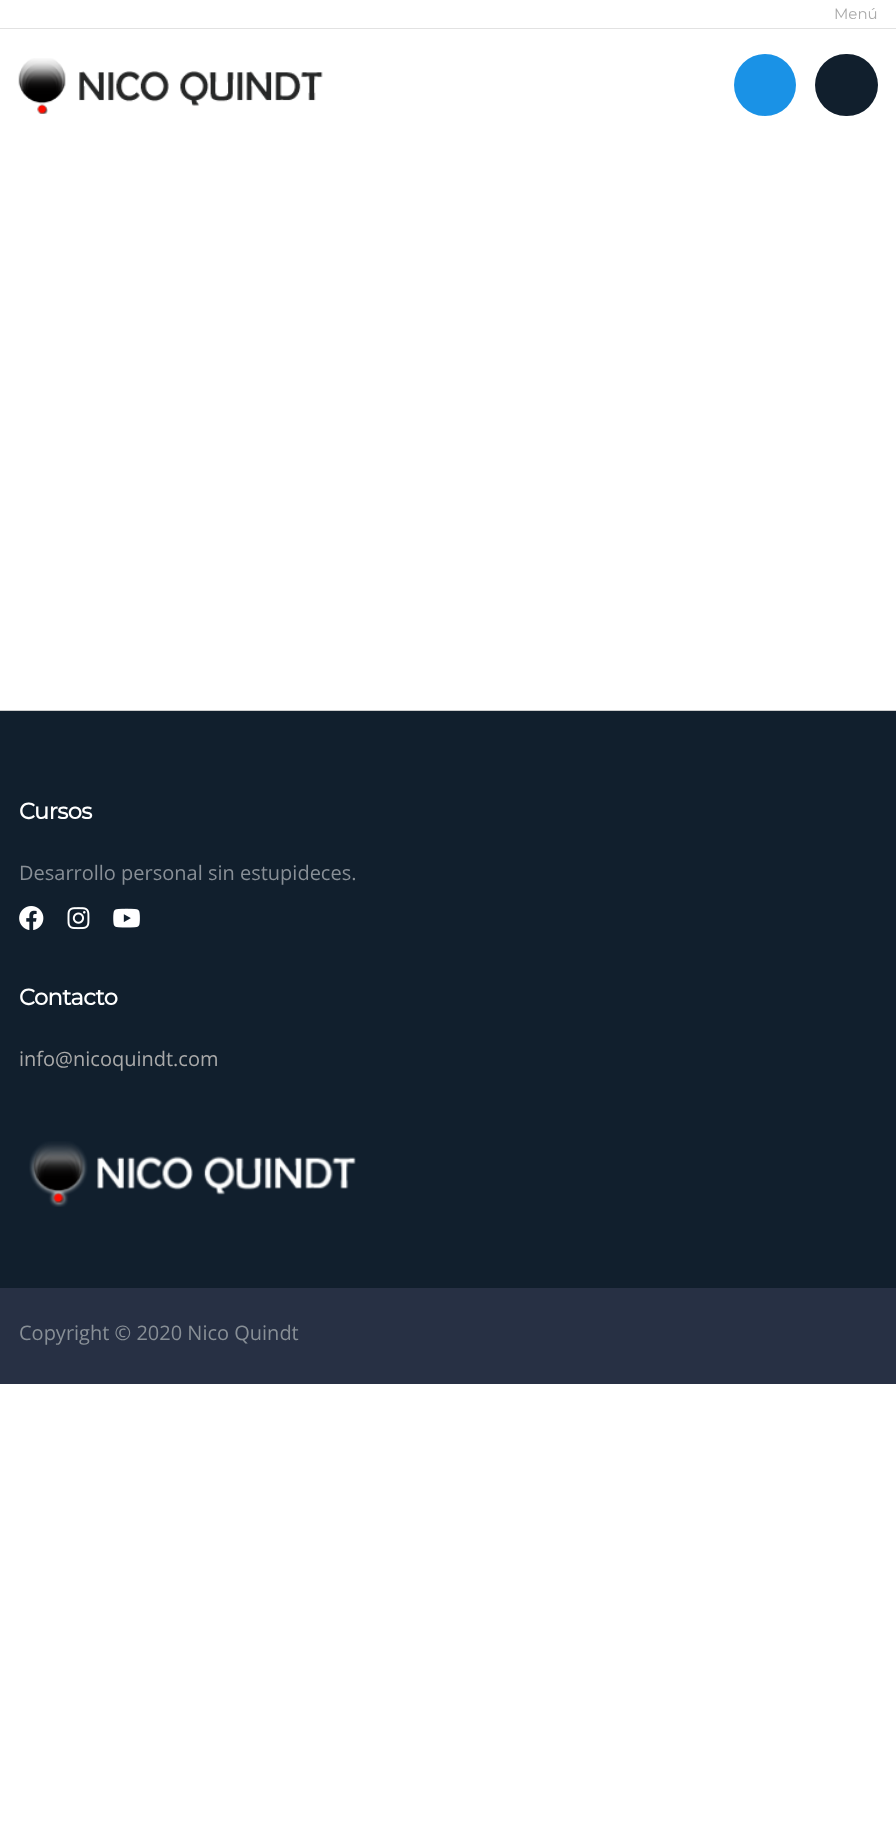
<svg xmlns="http://www.w3.org/2000/svg" xmlns:xlink="http://www.w3.org/1999/xlink" width="896" height="1823" viewBox="0 0 896 1823">
<style>
.cls-1{font:100 15px Montserrat;fill:#aaaaaa}
.cls-2{font:bold 22.5px Montserrat;letter-spacing:-0.5px;fill:#ffffff}
.cls-3{font:20px Open Sans;fill:#888f96}
.cls-4{font:20px Open Sans;fill:#aaaaaa}
</style>
<rect width="100%" height="100%" fill="#ffffff"/>
<rect fill="#e2e2e2" x="0" y="28" width="896" height="1"/>
<image xlink:href="image0.png" x="18" y="58" width="305" height="56"/>
<circle fill="#1a92e6" cx="765" cy="85" r="31"/>
<rect fill="#111f2d" x="815" y="54" width="63" height="62" rx="31"/>
<rect fill="#111f2d" x="0" y="711" width="896" height="577"/>
<rect fill="#cccccc" x="0" y="710" width="896" height="1"/>
<image xlink:href="image1.png" x="19" y="906" width="25" height="24"/>
<image xlink:href="image2.png" x="67" y="907" width="23" height="23"/>
<image xlink:href="image3.png" x="113" y="908" width="27" height="20"/>
<image xlink:href="image4.png" x="29" y="1141" width="327" height="66"/>
<rect fill="#273044" x="0" y="1288" width="896" height="96"/>
<text class="cls-1" x="834" y="19">Menú</text>
<text class="cls-2" x="19" y="819">Cursos</text>
<text class="cls-3" x="19" y="880">Desarrollo personal sin estupideces.</text>
<text class="cls-2" x="19" y="1005">Contacto</text>
<text class="cls-4" x="19" y="1066">info@nicoquindt.com</text>
<text class="cls-3" x="19" y="1340">Copyright © 2020 Nico Quindt</text>
</svg>
